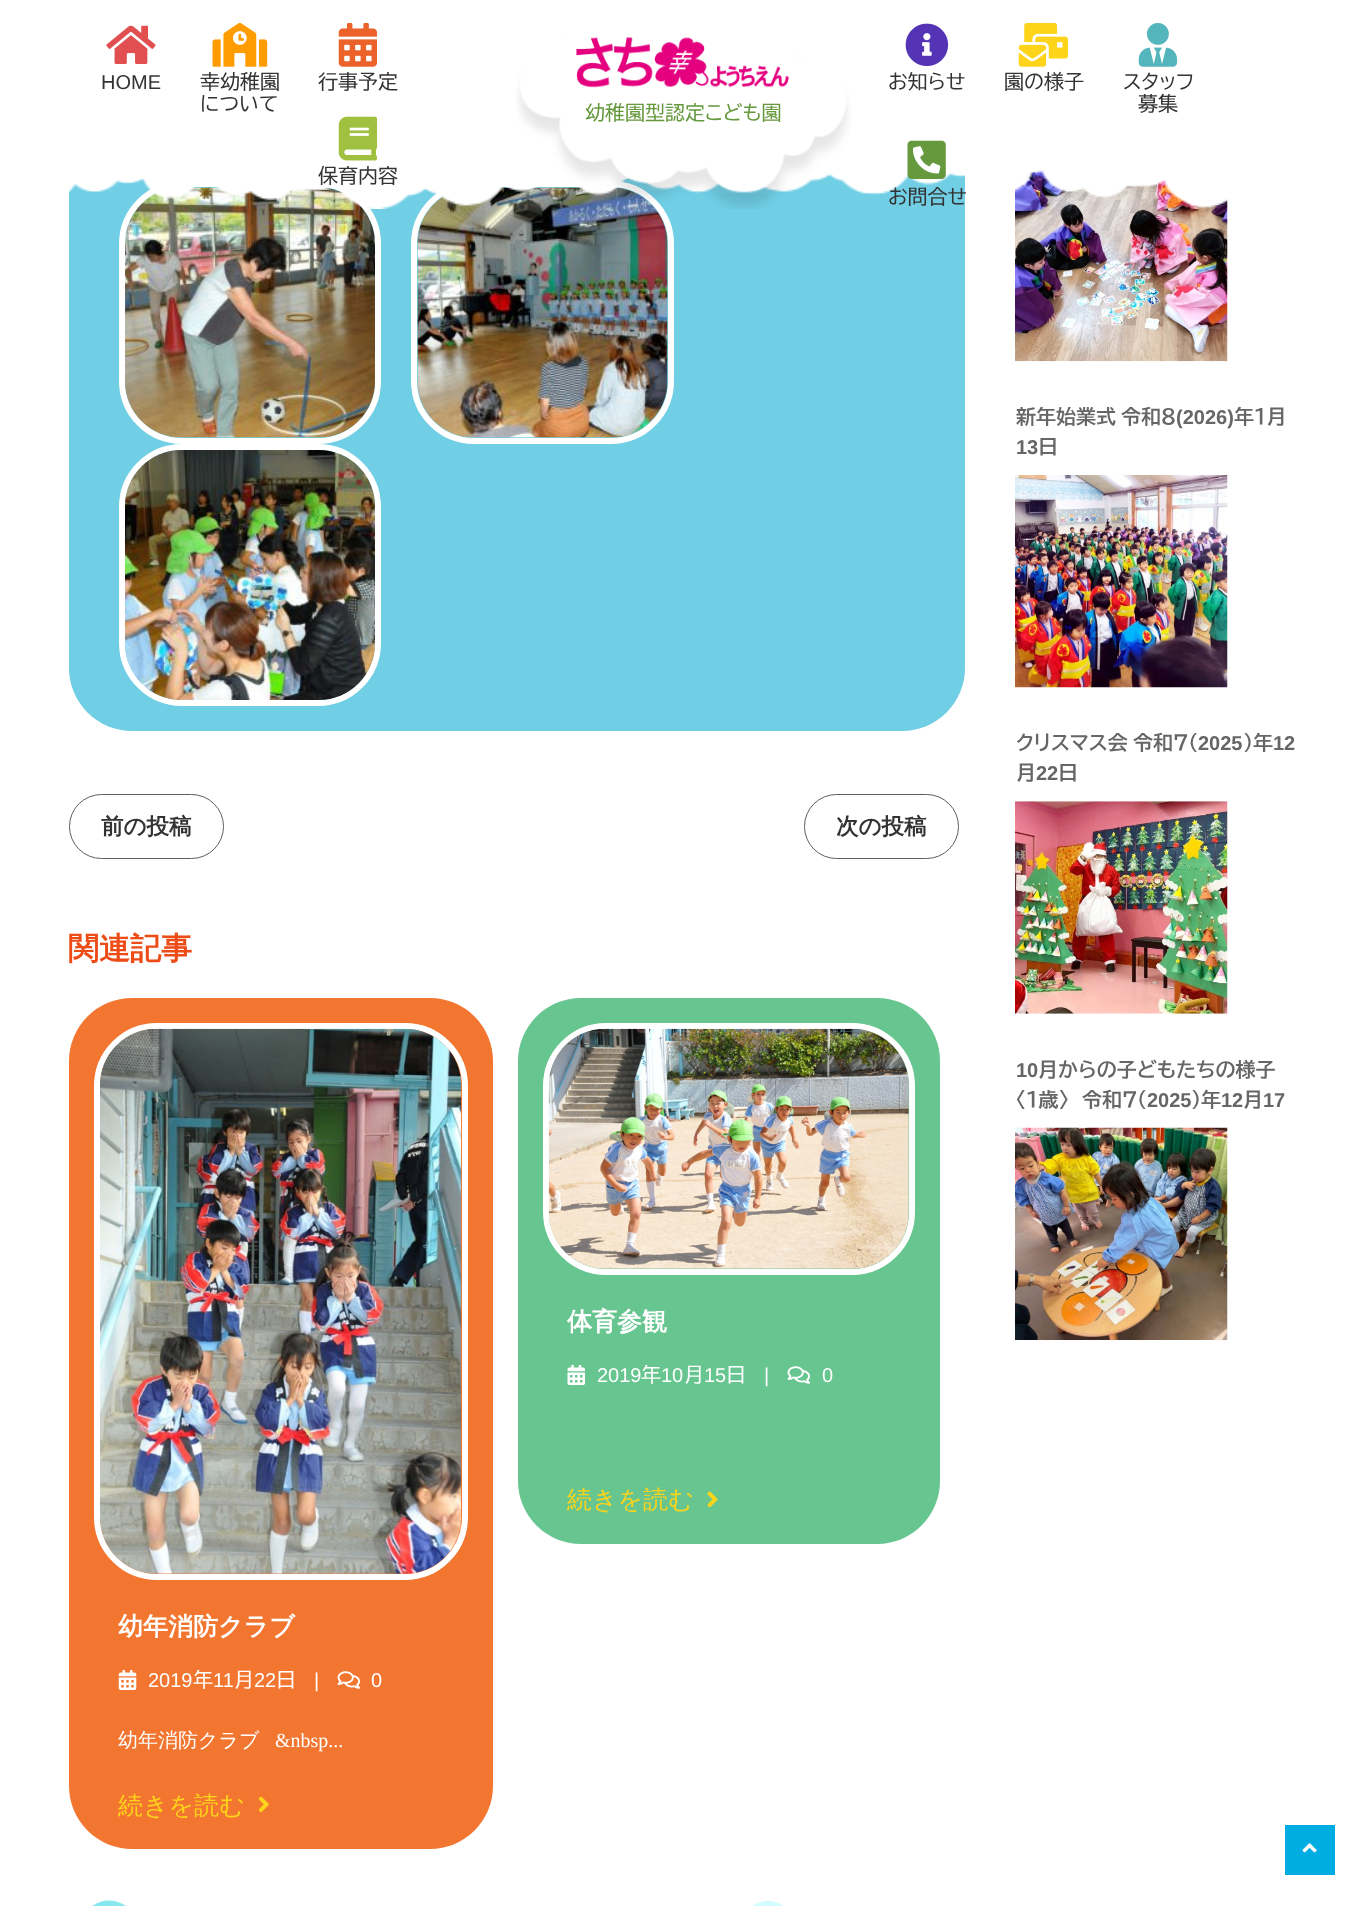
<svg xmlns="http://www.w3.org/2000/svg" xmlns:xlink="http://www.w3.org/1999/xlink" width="1366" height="1906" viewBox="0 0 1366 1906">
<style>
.cls-1{font:20px Liberation Sans;fill:#333333}
.cls-2{font:20px BIZ UDPGothic;fill:#333333}
.cls-3{font:20px BIZ UDPGothic;fill:#66993e}
.cls-4{font:bold 22.5px WenQuanYi Zen Hei;fill:#333333}
.cls-5{font:bold 31px WenQuanYi Zen Hei;fill:#ee4c16}
.cls-6{font:bold 25px WenQuanYi Zen Hei;fill:#ffffff}
.cls-7{font:20px Liberation Sans;fill:#ffffff}
.cls-8{font:20px BIZ UDPGothic;fill:#ffffff}
.cls-9{font:500 25px WenQuanYi Zen Hei;fill:#fdd41a}
.cls-10{font:500 20px WenQuanYi Zen Hei;fill:#ffffff}
.cls-11{font:20px Liberation Serif;fill:#ffffff}
.cls-12{font:bold 20px BIZ UDPGothic;fill:#666666}
.cls-13{font:bold 20px Liberation Sans;fill:#666666}
</style>
<rect width="100%" height="100%" fill="#ffffff"/>
<rect fill="#70cee5" x="69" y="-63" width="896" height="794" rx="63"/>
<rect fill="none" stroke="#ffffff" stroke-width="6" x="122" y="-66" width="256" height="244" rx="60"/>
<rect fill="none" stroke="#ffffff" stroke-width="6" x="414" y="-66" width="257" height="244" rx="60"/>
<image xlink:href="image11.png" x="624" y="173" width="1" height="1"/>
<rect fill="none" stroke="#ffffff" stroke-width="6" x="122" y="184" width="256" height="257" rx="60"/>
<image xlink:href="image12.png" x="125" y="187" width="250" height="251"/>
<rect fill="none" stroke="#ffffff" stroke-width="6" x="414" y="184" width="257" height="257" rx="60"/>
<image xlink:href="image13.png" x="417" y="187" width="251" height="251"/>
<image xlink:href="image23.png" x="1015" y="170" width="213" height="192"/>
<image xlink:href="image0.png" x="69" y="0" width="1220" height="209"/>
<image xlink:href="image1.png" x="106" y="25" width="50" height="39"/>
<image xlink:href="image2.png" x="212" y="23" width="56" height="44"/>
<image xlink:href="image3.png" x="338" y="23" width="40" height="44"/>
<image xlink:href="image4.png" x="338" y="116" width="40" height="45"/>
<image xlink:href="image5.png" x="516" y="38" width="335" height="171"/>
<image xlink:href="image6.png" x="576" y="37" width="213" height="51"/>
<image xlink:href="image7.png" x="905" y="23" width="44" height="43"/>
<image xlink:href="image8.png" x="1018" y="23" width="50" height="44"/>
<image xlink:href="image9.png" x="1138" y="23" width="40" height="44"/>
<image xlink:href="image10.png" x="907" y="140" width="39" height="39"/>
<rect fill="none" stroke="#ffffff" stroke-width="6" x="122" y="447" width="256" height="256" rx="60"/>
<image xlink:href="image14.png" x="125" y="450" width="250" height="250"/>
<rect fill="none" stroke="#5e5e5e" x="69.5" y="794.5" width="154" height="64" rx="32"/>
<rect fill="none" stroke="#5e5e5e" x="804.5" y="794.5" width="154" height="64" rx="32"/>
<rect fill="#67c58f" x="518" y="998" width="422" height="546" rx="63"/>
<rect fill="none" stroke="#ffffff" stroke-width="6" x="546" y="1026" width="366" height="246" rx="60"/>
<image xlink:href="image15.png" x="548" y="1028" width="361" height="241"/>
<image xlink:href="image16.png" x="567" y="1365" width="18" height="20"/>
<image xlink:href="image17.png" x="787" y="1366" width="23" height="18"/>
<image xlink:href="image18.png" x="707" y="1491" width="11" height="17"/>
<rect fill="#f37630" x="69" y="998" width="424" height="851" rx="63"/>
<rect fill="none" stroke="#ffffff" stroke-width="6" x="97" y="1026" width="368" height="551" rx="60"/>
<image xlink:href="image19.png" x="100" y="1028" width="362" height="546"/>
<image xlink:href="image20.png" x="118" y="1670" width="19" height="20"/>
<image xlink:href="image21.png" x="337" y="1671" width="23" height="18"/>
<image xlink:href="image22.png" x="258" y="1796" width="11" height="17"/>
<image xlink:href="image24.png" x="1015" y="475" width="213" height="213"/>
<image xlink:href="image25.png" x="1015" y="801" width="213" height="213"/>
<image xlink:href="image26.png" x="1015" y="1127" width="213" height="213"/>
<rect fill="#00ade3" x="1285" y="1825" width="50" height="50"/>
<image xlink:href="image27.png" x="1302" y="1843" width="15" height="10"/>
<image xlink:href="image28.png" x="92" y="1900" width="692" height="6"/>
<text class="cls-1" x="101" y="89">HOME</text>
<text class="cls-2"><tspan x="200" y="89">幸幼稚園</tspan><tspan x="200" y="111">について</tspan></text>
<text class="cls-2" x="318" y="89">行事予定</text>
<text class="cls-2" x="318" y="183">保育内容</text>
<text class="cls-3" x="585" y="120">幼稚園型認定こども園</text>
<text class="cls-2" x="888" y="89">お知らせ</text>
<text class="cls-2" x="1004" y="89">園の様子</text>
<text class="cls-2" x="1123" y="89">スタッフ</text>
<text class="cls-2" x="1138" y="111">募集</text>
<text class="cls-2" x="888" y="204">お問合せ</text>
<text class="cls-4" x="101" y="834">前の投稿</text>
<text class="cls-4" x="836" y="834">次の投稿</text>
<text class="cls-5" x="68" y="959">関連記事</text>
<text class="cls-6" x="567" y="1330">体育参観</text>
<text class="cls-7" x="597" y="1382">2019</text>
<text class="cls-8" x="641" y="1382">年</text>
<text class="cls-7" x="661" y="1382">10</text>
<text class="cls-8" x="684" y="1382">月</text>
<text class="cls-7" x="704" y="1382">15</text>
<text class="cls-8" x="726" y="1382">日</text>
<text class="cls-7" x="764" y="1382">|</text>
<text class="cls-7" x="822" y="1382">0</text>
<text class="cls-9" x="567" y="1508">続きを読む</text>
<text class="cls-6" x="118" y="1635">幼年消防クラブ</text>
<text class="cls-7" x="148" y="1687">2019</text>
<text class="cls-8" x="193" y="1687">年</text>
<text class="cls-7" x="213" y="1687">11</text>
<text class="cls-8" x="234" y="1687">月</text>
<text class="cls-7" x="254" y="1687">22</text>
<text class="cls-8" x="276" y="1687">日</text>
<text class="cls-7" x="314" y="1687">|</text>
<text class="cls-7" x="371" y="1687">0</text>
<text class="cls-10" x="118" y="1747">幼年消防クラブ</text>
<text class="cls-11" x="275" y="1747">&amp;nbsp...</text>
<text class="cls-9" x="118" y="1814">続きを読む</text>
<text class="cls-12" x="1016" y="424">新年始業式</text>
<text class="cls-12" x="1121" y="424">令和８</text>
<text class="cls-13" x="1176" y="424">(2026)</text>
<text class="cls-12" x="1234" y="424">年１月</text>
<text class="cls-13" x="1016" y="454">13</text>
<text class="cls-12" x="1038" y="454">日</text>
<text class="cls-12" x="1016" y="750">クリスマス会</text>
<text class="cls-12" x="1133" y="750">令和７（</text>
<text class="cls-13" x="1198" y="750">2025</text>
<text class="cls-12" x="1243" y="750">）年</text>
<text class="cls-13" x="1273" y="750">12</text>
<text class="cls-12" x="1016" y="780">月</text>
<text class="cls-13" x="1036" y="780">22</text>
<text class="cls-12" x="1058" y="780">日</text>
<text class="cls-13" x="1016" y="1077">10</text>
<text class="cls-12" x="1038" y="1077">月からの子どもたちの様子</text>
<text class="cls-12" x="1016" y="1107">〈１歳〉　令和７（</text>
<text class="cls-13" x="1147" y="1107">2025</text>
<text class="cls-12" x="1191" y="1107">）年</text>
<text class="cls-13" x="1221" y="1107">12</text>
<text class="cls-12" x="1243" y="1107">月</text>
<text class="cls-13" x="1263" y="1107">17</text>
</svg>
